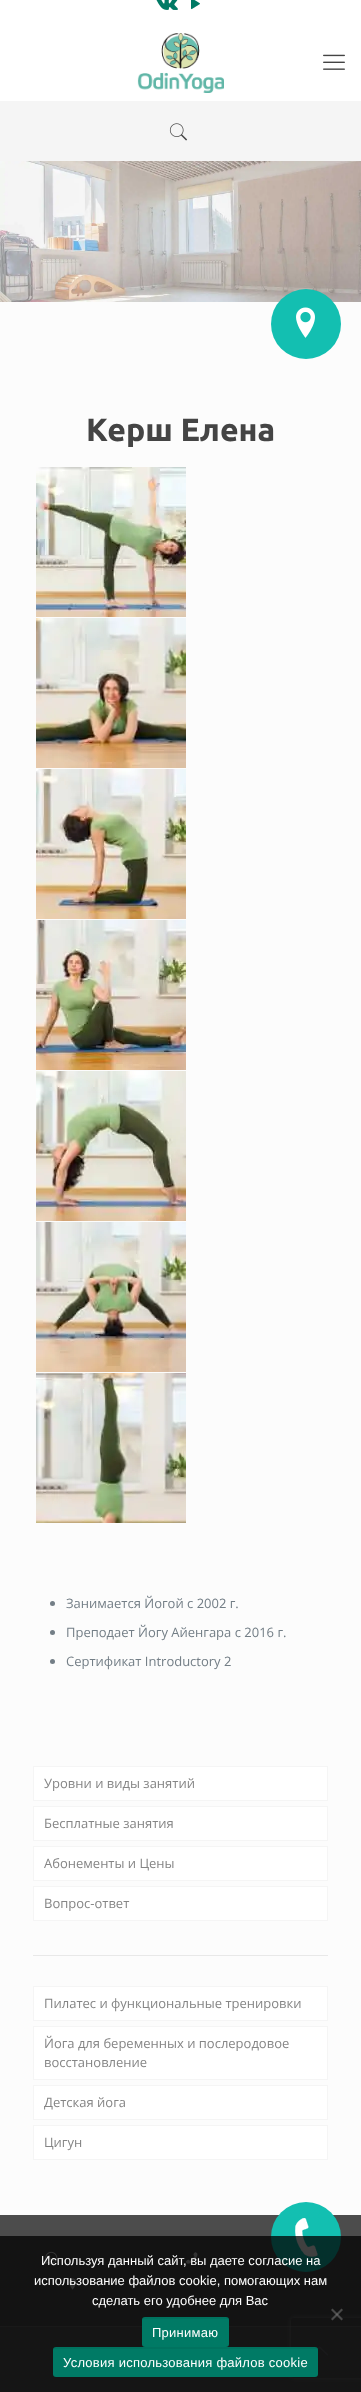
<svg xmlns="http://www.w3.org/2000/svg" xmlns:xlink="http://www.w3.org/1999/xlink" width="361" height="2392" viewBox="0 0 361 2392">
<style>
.cls-1{font:bold 32px Ubuntu;fill:#444444}
.cls-2{font:13px Open Sans;fill:#737e86}
.cls-3{font:13px Open Sans;fill:#858585}
.cls-4{font:13px Liberation Sans;fill:#ffffff}
.cls-5{font:13px Liberation Sans;letter-spacing:0.25px;fill:#ffffff}
</style>
<defs>
<clipPath id="clip1"><path d="M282 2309H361V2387H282ZM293 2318H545C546 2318 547 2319 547 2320V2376C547 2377 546 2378 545 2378H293C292 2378 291 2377 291 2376V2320C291 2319 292 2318 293 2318Z" clip-rule="evenodd"/></clipPath>
</defs>
<rect width="100%" height="100%" fill="#fcfcfc"/>
<image xlink:href="image6.png" x="0" y="161" width="361" height="141"/>
<circle fill="#13bfb1" cx="306" cy="324" r="35"/>
<image xlink:href="image0.png" x="296" y="307" width="19" height="31"/>
<rect fill="#ffffff" x="0" y="0" width="361" height="101"/>
<image xlink:href="image1.png" x="156" y="0" width="22" height="10"/>
<image xlink:href="image2.png" x="191" y="0" width="9" height="10"/>
<image xlink:href="image3.png" x="137" y="33" width="87" height="60"/>
<image xlink:href="image4.png" x="323" y="54" width="22" height="16"/>
<rect fill="#f5f5f5" x="0" y="101" width="361" height="60"/>
<image xlink:href="image5.png" x="169" y="123" width="19" height="18"/>
<image xlink:href="image7.png" x="36" y="467" width="150" height="150"/>
<image xlink:href="image8.png" x="36" y="618" width="150" height="150"/>
<image xlink:href="image9.png" x="36" y="769" width="150" height="150"/>
<image xlink:href="image10.png" x="36" y="920" width="150" height="150"/>
<image xlink:href="image11.png" x="36" y="1071" width="150" height="150"/>
<image xlink:href="image12.png" x="36" y="1222" width="150" height="150"/>
<image xlink:href="image13.png" x="36" y="1373" width="150" height="150"/>
<circle fill="#737e86" cx="52.5" cy="1603.5" r="2.5"/>
<circle fill="#737e86" cx="52.5" cy="1632.5" r="2.5"/>
<circle fill="#737e86" cx="52.5" cy="1661.5" r="2.5"/>
<rect fill="#ffffff" stroke="#f5f5f5" x="33.5" y="1766.5" width="294" height="34"/>
<rect fill="#ffffff" stroke="#f5f5f5" x="33.5" y="1806.5" width="294" height="34"/>
<rect fill="#ffffff" stroke="#f5f5f5" x="33.5" y="1846.5" width="294" height="34"/>
<rect fill="#ffffff" stroke="#f5f5f5" x="33.5" y="1886.5" width="294" height="34"/>
<rect fill="#e8e8e8" x="33" y="1955" width="295" height="1"/>
<rect fill="#ffffff" stroke="#f5f5f5" x="33.5" y="1986.5" width="294" height="34"/>
<rect fill="#ffffff" stroke="#f5f5f5" x="33.5" y="2026.5" width="294" height="53"/>
<rect fill="#ffffff" stroke="#f5f5f5" x="33.5" y="2085.5" width="294" height="34"/>
<rect fill="#ffffff" stroke="#f5f5f5" x="33.5" y="2125.5" width="294" height="34"/>
<rect fill="#545454" x="0" y="2327" width="361" height="65"/>
<rect fill="#4c4c4c" x="0" y="2215" width="361" height="111"/>
<image xlink:href="image14.png" x="45" y="2251" width="13" height="14"/>
<image xlink:href="image15.png" x="186" y="2252" width="12" height="12"/>
<image xlink:href="image16.png" x="69" y="2278" width="8" height="12"/>
<rect fill="#656565" x="0" y="2326" width="361" height="1"/>
<circle fill="#13bfb1" cx="306" cy="2237" r="35"/>
<image xlink:href="image17.png" x="295" y="2218" width="23" height="39"/>
<g clip-path="url(#clip1)">
<rect fill="#808080" filter="blur(2.5px)" x="291" y="2318" width="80" height="60" rx="2"/>
</g>
<image xlink:href="image20.png" x="317" y="2346" width="11" height="10"/>
<rect fill="#000000" fill-opacity="0.75" x="0" y="2236" width="361" height="156"/>
<path fill="#808080" fill-opacity="0.5" d="M341.5 2308.5L343 2310L332.5 2320.5L331 2319Z"/>
<path fill="#808080" fill-opacity="0.5" d="M331 2310L332.5 2308.5L343 2319L341.5 2320.5Z"/>
<rect fill="#007a65" x="142" y="2317" width="87" height="30" rx="3"/>
<image xlink:href="image18.png" x="143" y="2317" width="85" height="2"/>
<rect fill="#007a65" x="53" y="2347" width="265" height="30" rx="3"/>
<image xlink:href="image19.png" x="54" y="2347" width="263" height="2"/>
<text class="cls-1" x="86" y="441">Керш Елена</text>
<text class="cls-2" x="66" y="1608">Занимается Йогой с 2002 г.</text>
<text class="cls-2" x="66" y="1637">Преподает Йогу Айенгара с 2016 г.</text>
<text class="cls-2" x="66" y="1666">Сертификат Introductory 2</text>
<text class="cls-3" x="44" y="1788">Уровни и виды занятий</text>
<text class="cls-3" x="44" y="1828">Бесплатные занятия</text>
<text class="cls-3" x="44" y="1868">Абонементы и Цены</text>
<text class="cls-3" x="44" y="1908">Вопрос-ответ</text>
<text class="cls-3" x="44" y="2008">Пилатес и функциональные тренировки</text>
<text class="cls-3"><tspan x="44" y="2048">Йога для беременных и послеродовое</tspan><tspan x="44" y="2067">восстановление</tspan></text>
<text class="cls-3" x="44" y="2107">Детская йога</text>
<text class="cls-3" x="44" y="2147">Цигун</text>
<text class="cls-4" x="41" y="2265">Используя данный сайт, вы даете согласие на</text>
<text class="cls-4" x="34" y="2285">использование файлов cookie, помогающих нам</text>
<text class="cls-4" x="92" y="2305">сделать его удобнее для Вас</text>
<text class="cls-5" x="152" y="2337">Принимаю</text>
<text class="cls-5" x="63" y="2367">Условия использования файлов cookie</text>
</svg>
